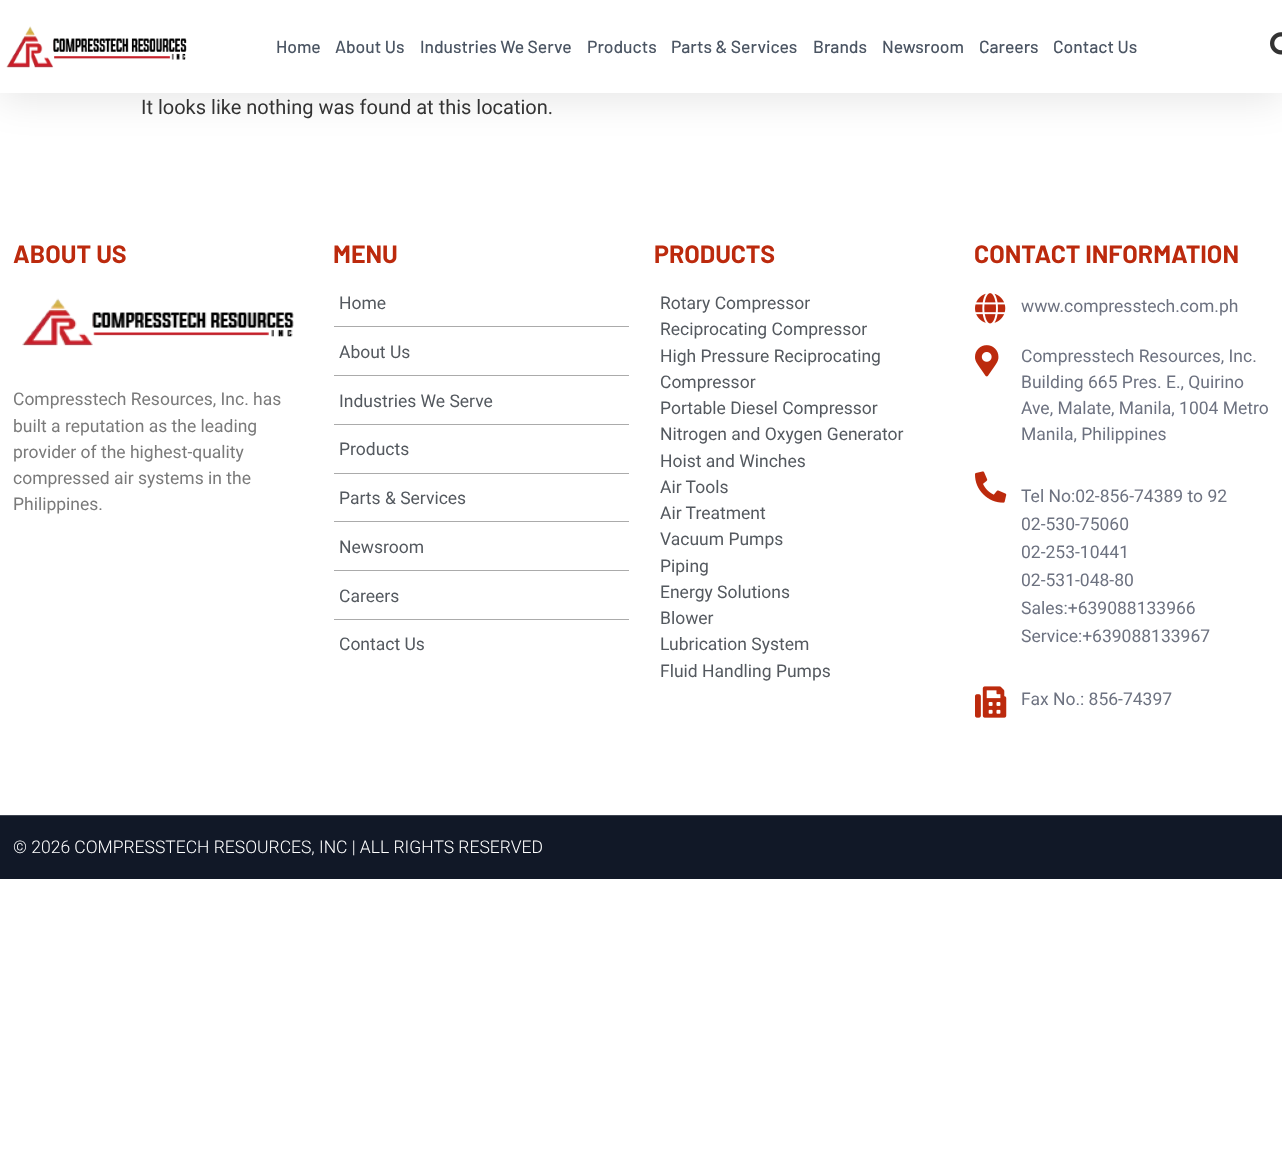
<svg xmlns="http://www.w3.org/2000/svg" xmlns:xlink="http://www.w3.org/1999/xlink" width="1282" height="1167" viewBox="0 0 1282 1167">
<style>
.cls-1{font:500 17.5px Barlow;fill:#4b5563}
.cls-2{font:20px Roboto;fill:#333333}
.cls-3{font:bold 25px Barlow;fill:#bc2a0d}
.cls-4{font:17.5px Roboto;fill:#7a7a7a}
.cls-5{font:17.5px Roboto;fill:#54595f}
.cls-6{font:17.5px Roboto;fill:#6d7280}
.cls-7{font:300 17.5px Roboto;fill:#ffffff}
</style>
<rect width="100%" height="100%" fill="#ffffff"/>
<rect fill="#000000" fill-opacity="0.1" filter="blur(19px)" x="0" y="6" width="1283" height="93"/>
<rect fill="#ffffff" x="0" y="0" width="1282" height="93"/>
<image xlink:href="image0.png" x="6" y="26" width="181" height="42"/>
<image xlink:href="image1.png" x="1270" y="32" width="12" height="23"/>
<image xlink:href="image2.png" x="22" y="298" width="272" height="48"/>
<rect fill="#ababab" x="334" y="326" width="295" height="1"/>
<rect fill="#ababab" x="334" y="375" width="295" height="1"/>
<rect fill="#ababab" x="334" y="424" width="295" height="1"/>
<rect fill="#ababab" x="334" y="473" width="295" height="1"/>
<rect fill="#ababab" x="334" y="521" width="295" height="1"/>
<rect fill="#ababab" x="334" y="570" width="295" height="1"/>
<rect fill="#ababab" x="334" y="619" width="295" height="1"/>
<image xlink:href="image3.png" x="975" y="293" width="31" height="31"/>
<image xlink:href="image4.png" x="975" y="345" width="24" height="32"/>
<image xlink:href="image5.png" x="975" y="471" width="32" height="32"/>
<image xlink:href="image6.png" x="975" y="686" width="32" height="32"/>
<rect fill="#111827" x="0" y="816" width="1282" height="63"/>
<rect fill="#3e4450" x="0" y="815" width="1282" height="1"/>
<text class="cls-1" x="276" y="53">Home</text>
<text class="cls-1" x="335" y="53">About Us</text>
<text class="cls-1" x="420" y="53">Industries We Serve</text>
<text class="cls-1" x="587" y="53">Products</text>
<text class="cls-1" x="671" y="53">Parts &amp; Services</text>
<text class="cls-1" x="813" y="53">Brands</text>
<text class="cls-1" x="882" y="53">Newsroom</text>
<text class="cls-1" x="979" y="53">Careers</text>
<text class="cls-1" x="1053" y="53">Contact Us</text>
<text class="cls-2" x="141" y="114">It looks like nothing was found at this location.</text>
<text class="cls-3" x="13" y="263">ABOUT US</text>
<text class="cls-4"><tspan x="13" y="405">Compresstech Resources, Inc. has</tspan><tspan x="13" y="432">built a reputation as the leading</tspan><tspan x="13" y="458">provider of the highest-quality</tspan><tspan x="13" y="484">compressed air systems in the</tspan><tspan x="13" y="510">Philippines.</tspan></text>
<text class="cls-3" x="333" y="263">MENU</text>
<text class="cls-5" x="339" y="309">Home</text>
<text class="cls-5" x="339" y="358">About Us</text>
<text class="cls-5" x="339" y="407">Industries We Serve</text>
<text class="cls-5" x="339" y="455">Products</text>
<text class="cls-5" x="339" y="504">Parts &amp; Services</text>
<text class="cls-5" x="339" y="553">Newsroom</text>
<text class="cls-5" x="339" y="602">Careers</text>
<text class="cls-5" x="339" y="650">Contact Us</text>
<text class="cls-3" x="654" y="263">PRODUCTS</text>
<text class="cls-5"><tspan x="660" y="309">Rotary Compressor</tspan><tspan x="660" y="335">Reciprocating Compressor</tspan><tspan x="660" y="362">High Pressure Reciprocating</tspan><tspan x="660" y="388">Compressor</tspan><tspan x="660" y="414">Portable Diesel Compressor</tspan><tspan x="660" y="440">Nitrogen and Oxygen Generator</tspan><tspan x="660" y="467">Hoist and Winches</tspan><tspan x="660" y="493">Air Tools</tspan><tspan x="660" y="519">Air Treatment</tspan><tspan x="660" y="545">Vacuum Pumps</tspan><tspan x="660" y="572">Piping</tspan><tspan x="660" y="598">Energy Solutions</tspan><tspan x="660" y="624">Blower</tspan><tspan x="660" y="650">Lubrication System</tspan><tspan x="660" y="677">Fluid Handling Pumps</tspan></text>
<text class="cls-3" x="974" y="263">CONTACT INFORMATION</text>
<text class="cls-6" x="1021" y="312">www.compresstech.com.ph</text>
<text class="cls-6"><tspan x="1021" y="362">Compresstech Resources, Inc.</tspan><tspan x="1021" y="388">Building 665 Pres. E., Quirino</tspan><tspan x="1021" y="414">Ave, Malate, Manila, 1004 Metro</tspan><tspan x="1021" y="440">Manila, Philippines</tspan></text>
<text class="cls-6"><tspan x="1021" y="502">Tel No:02-856-74389 to 92</tspan><tspan x="1021" y="530">02-530-75060</tspan><tspan x="1021" y="558">02-253-10441</tspan><tspan x="1021" y="586">02-531-048-80</tspan><tspan x="1021" y="614">Sales:+639088133966</tspan><tspan x="1021" y="642">Service:+639088133967</tspan></text>
<text class="cls-6" x="1021" y="705">Fax No.: 856-74397</text>
<text class="cls-7" x="13" y="853">© 2026 COMPRESSTECH RESOURCES, INC | ALL RIGHTS RESERVED</text>
</svg>
